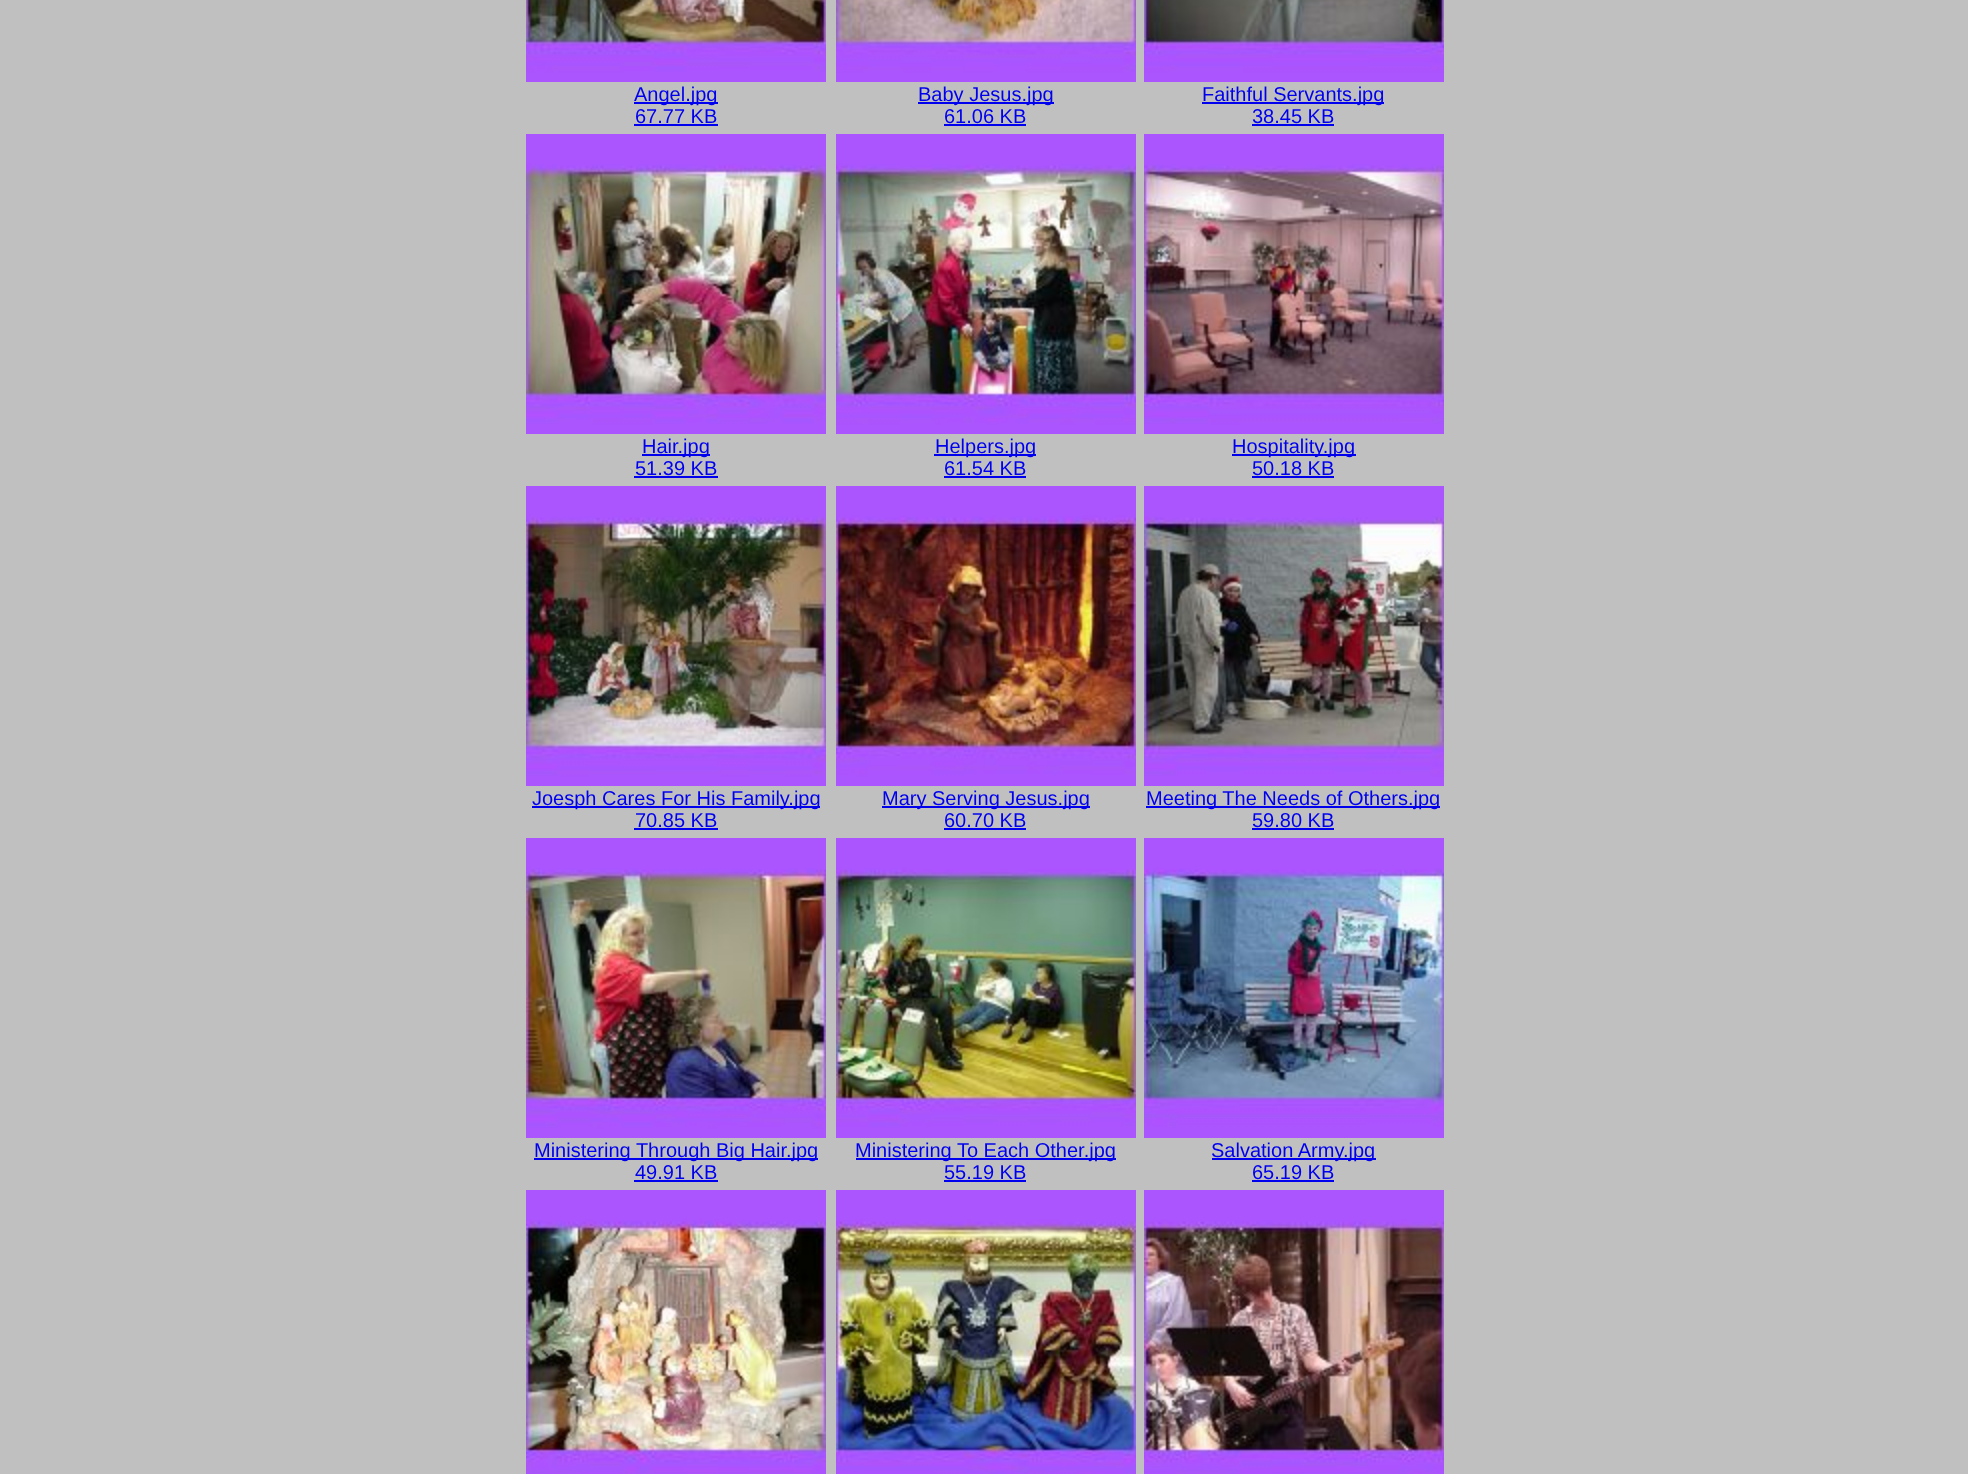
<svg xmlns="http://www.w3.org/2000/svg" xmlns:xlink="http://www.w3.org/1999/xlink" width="1968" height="1474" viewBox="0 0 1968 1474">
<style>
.cls-1{font:20px Liberation Sans;fill:#0000ee}
</style>
<rect width="100%" height="100%" fill="#c0c0c0"/>
<image xlink:href="image0.png" x="526" y="0" width="300" height="82"/>
<rect fill="#0000ee" x="634" y="102" width="84" height="2"/>
<rect fill="#0000ee" x="634" y="124" width="84" height="2"/>
<image xlink:href="image1.png" x="836" y="0" width="300" height="82"/>
<rect fill="#0000ee" x="918" y="102" width="136" height="2"/>
<rect fill="#0000ee" x="944" y="124" width="82" height="2"/>
<image xlink:href="image2.png" x="1144" y="0" width="300" height="82"/>
<rect fill="#0000ee" x="1202" y="102" width="182" height="2"/>
<rect fill="#0000ee" x="1252" y="124" width="82" height="2"/>
<image xlink:href="image3.png" x="526" y="134" width="300" height="300"/>
<rect fill="#0000ee" x="642" y="454" width="68" height="2"/>
<rect fill="#0000ee" x="634" y="476" width="84" height="2"/>
<image xlink:href="image4.png" x="836" y="134" width="300" height="300"/>
<rect fill="#0000ee" x="934" y="454" width="102" height="2"/>
<rect fill="#0000ee" x="944" y="476" width="82" height="2"/>
<image xlink:href="image5.png" x="1144" y="134" width="300" height="300"/>
<rect fill="#0000ee" x="1232" y="454" width="124" height="2"/>
<rect fill="#0000ee" x="1252" y="476" width="82" height="2"/>
<image xlink:href="image6.png" x="526" y="486" width="300" height="300"/>
<rect fill="#0000ee" x="532" y="806" width="288" height="2"/>
<rect fill="#0000ee" x="634" y="828" width="84" height="2"/>
<image xlink:href="image7.png" x="836" y="486" width="300" height="300"/>
<rect fill="#0000ee" x="882" y="806" width="208" height="2"/>
<rect fill="#0000ee" x="944" y="828" width="82" height="2"/>
<image xlink:href="image8.png" x="1144" y="486" width="300" height="300"/>
<rect fill="#0000ee" x="1146" y="806" width="294" height="2"/>
<rect fill="#0000ee" x="1252" y="828" width="82" height="2"/>
<image xlink:href="image9.png" x="526" y="838" width="300" height="300"/>
<rect fill="#0000ee" x="534" y="1158" width="284" height="2"/>
<rect fill="#0000ee" x="634" y="1180" width="84" height="2"/>
<image xlink:href="image10.png" x="836" y="838" width="300" height="300"/>
<rect fill="#0000ee" x="856" y="1158" width="260" height="2"/>
<rect fill="#0000ee" x="944" y="1180" width="82" height="2"/>
<image xlink:href="image11.png" x="1144" y="838" width="300" height="300"/>
<rect fill="#0000ee" x="1212" y="1158" width="164" height="2"/>
<rect fill="#0000ee" x="1252" y="1180" width="82" height="2"/>
<image xlink:href="image12.png" x="526" y="1190" width="300" height="284"/>
<image xlink:href="image13.png" x="836" y="1190" width="300" height="284"/>
<image xlink:href="image14.png" x="1144" y="1190" width="300" height="284"/>
<text class="cls-1" x="634" y="101">Angel.jpg</text>
<text class="cls-1" x="635" y="123">67.77 KB</text>
<text class="cls-1" x="918" y="101">Baby Jesus.jpg</text>
<text class="cls-1" x="944" y="123">61.06 KB</text>
<text class="cls-1" x="1202" y="101">Faithful Servants.jpg</text>
<text class="cls-1" x="1252" y="123">38.45 KB</text>
<text class="cls-1" x="642" y="453">Hair.jpg</text>
<text class="cls-1" x="635" y="475">51.39 KB</text>
<text class="cls-1" x="935" y="453">Helpers.jpg</text>
<text class="cls-1" x="944" y="475">61.54 KB</text>
<text class="cls-1" x="1232" y="453">Hospitality.jpg</text>
<text class="cls-1" x="1252" y="475">50.18 KB</text>
<text class="cls-1" x="532" y="805">Joesph Cares For His Family.jpg</text>
<text class="cls-1" x="635" y="827">70.85 KB</text>
<text class="cls-1" x="882" y="805">Mary Serving Jesus.jpg</text>
<text class="cls-1" x="944" y="827">60.70 KB</text>
<text class="cls-1" x="1146" y="805">Meeting The Needs of Others.jpg</text>
<text class="cls-1" x="1252" y="827">59.80 KB</text>
<text class="cls-1" x="534" y="1157">Ministering Through Big Hair.jpg</text>
<text class="cls-1" x="635" y="1179">49.91 KB</text>
<text class="cls-1" x="855" y="1157">Ministering To Each Other.jpg</text>
<text class="cls-1" x="944" y="1179">55.19 KB</text>
<text class="cls-1" x="1211" y="1157">Salvation Army.jpg</text>
<text class="cls-1" x="1252" y="1179">65.19 KB</text>
</svg>
